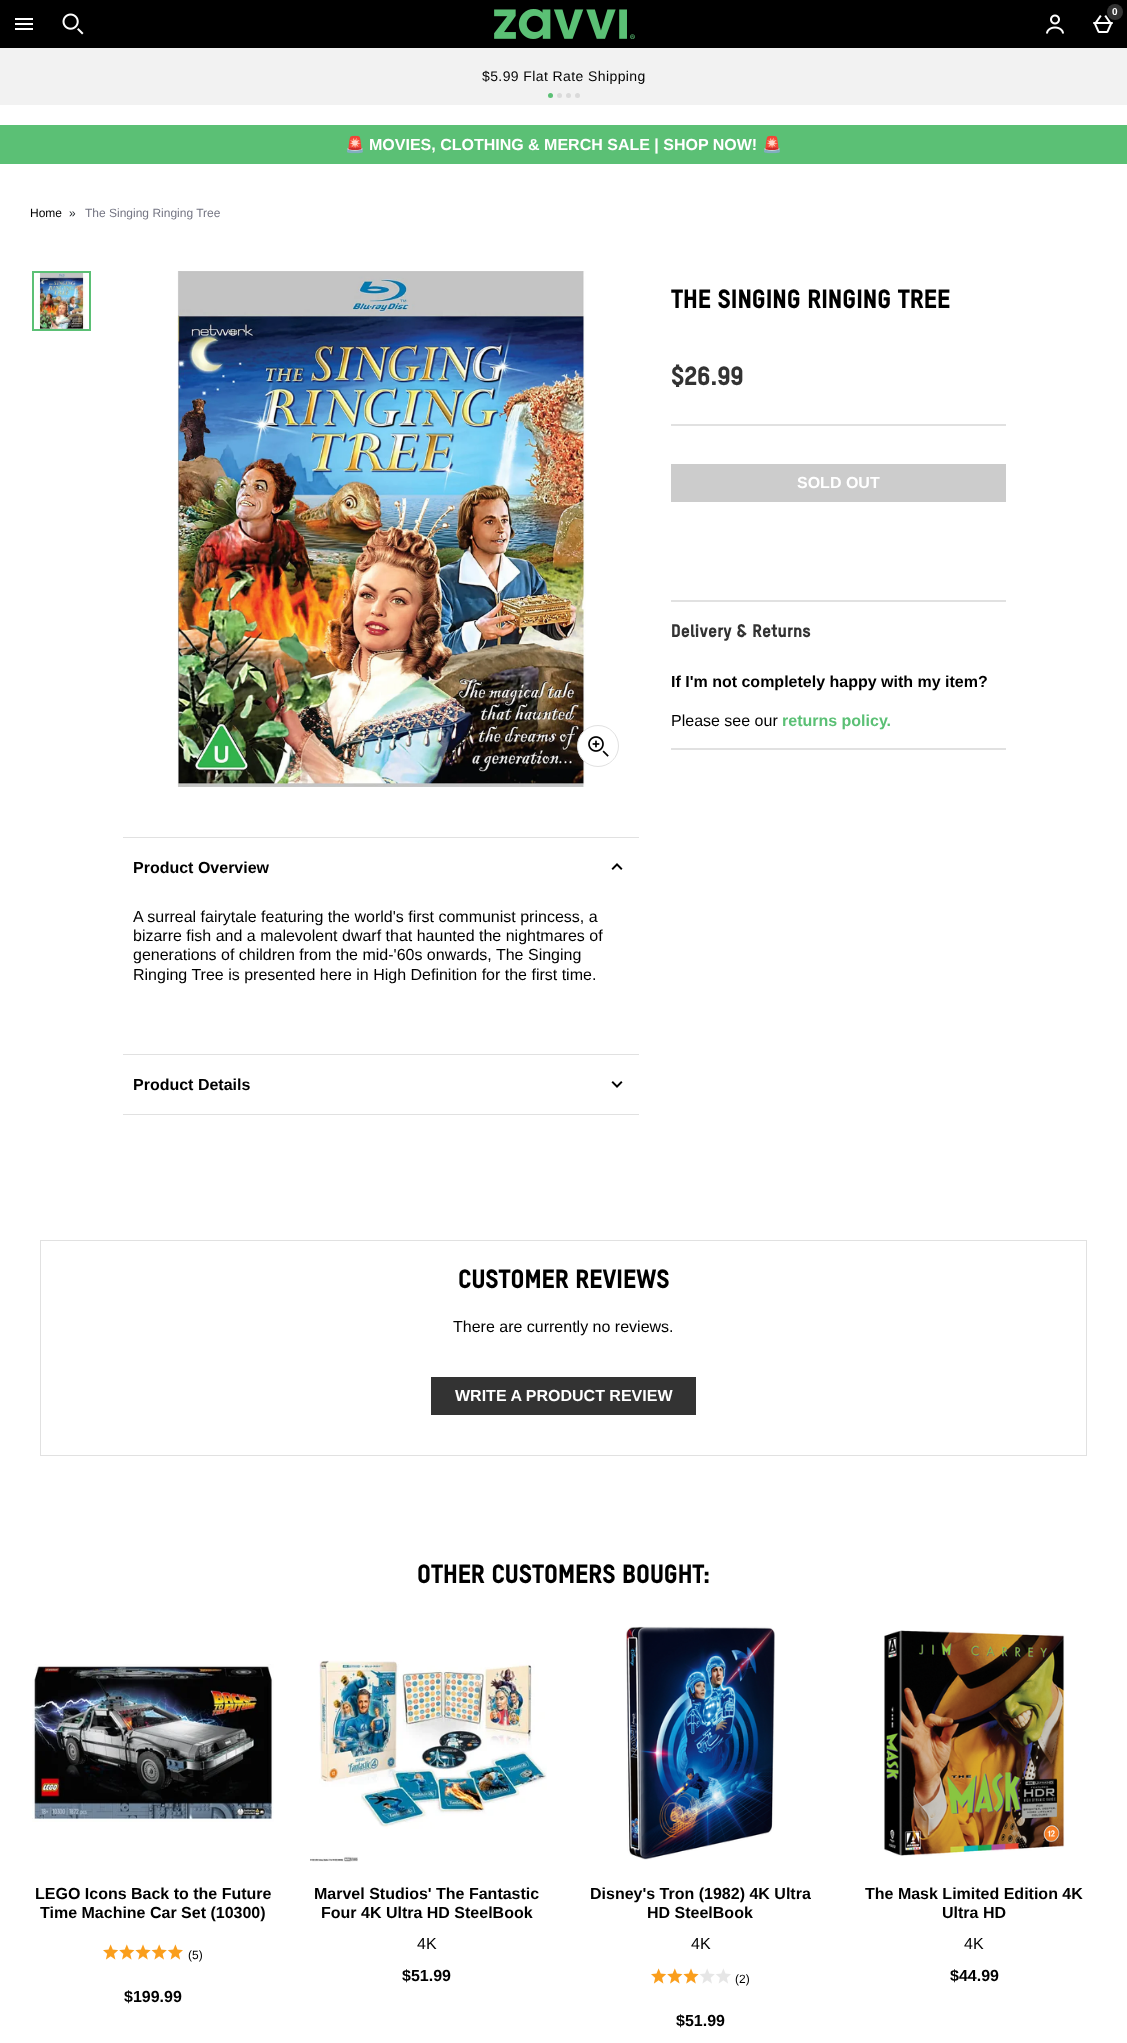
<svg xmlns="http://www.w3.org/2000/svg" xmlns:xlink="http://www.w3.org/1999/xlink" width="1127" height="2043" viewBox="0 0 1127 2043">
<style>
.cls-1{font:bold 10px Liberation Sans;fill:#ffffff}
.cls-2{font:14px Liberation Sans;letter-spacing:0.4px;fill:#000000}
.cls-3{font:bold 16px Noto Color Emoji;fill:#ffffff}
.cls-4{font:bold 16px Liberation Sans;fill:#ffffff}
.cls-5{font:12px Liberation Sans;fill:#000000}
.cls-6{font:12px Liberation Sans;fill:#22272c}
.cls-7{font:12px Liberation Sans;fill:#747583}
.cls-8{font:900 26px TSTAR;fill:#000000}
.cls-9{font:900 26px TSTAR;fill:#333333}
.cls-10{font:900 18px TSTAR;fill:#333333}
.cls-11{font:bold 16px Liberation Sans;fill:#000000}
.cls-12{font:16px Liberation Sans;fill:#000000}
.cls-13{font:bold 16px Liberation Sans;fill:#5bc075}
</style>
<rect width="100%" height="100%" fill="#ffffff"/>
<rect fill="#000000" x="0" y="0" width="1127" height="48"/>
<image xlink:href="image0.png" x="15" y="18" width="18" height="12"/>
<image xlink:href="image1.png" x="62" y="13" width="22" height="22"/>
<image xlink:href="image2.png" x="494" y="9" width="141" height="30"/>
<image xlink:href="image3.png" x="1046" y="14" width="18" height="20"/>
<image xlink:href="image4.png" x="1093" y="15" width="20" height="18"/>
<circle fill="#333333" cx="1115" cy="12" r="8"/>
<rect fill="#f2f2f2" x="0" y="48" width="1127" height="57"/>
<circle fill="#5bc075" cx="550.5" cy="95.5" r="2.5"/>
<circle fill="#dadada" cx="559.5" cy="95.5" r="2.5"/>
<circle fill="#dadada" cx="568.5" cy="95.5" r="2.5"/>
<circle fill="#dadada" cx="577.5" cy="95.5" r="2.5"/>
<rect fill="#5bc075" x="0" y="125" width="1127" height="39"/>
<rect fill="#e1e1e1" x="671" y="424" width="335" height="2"/>
<rect fill="#cccccc" x="671" y="464" width="335" height="38"/>
<rect fill="#e1e1e1" x="671" y="600" width="335" height="2"/>
<rect fill="#e1e1e1" x="671" y="748" width="335" height="2"/>
<rect fill="none" stroke="#5bc075" stroke-width="2" x="33" y="272" width="57" height="58"/>
<image xlink:href="image5.png" x="34" y="273" width="55" height="56"/>
<image xlink:href="image6.png" x="177" y="271" width="409" height="516"/>
<circle fill="#ffffff" stroke="#e1e1e1" cx="598" cy="746" r="20.5"/>
<image xlink:href="image7.png" x="588" y="736" width="21" height="21"/>
<rect fill="#e1e1e1" x="123" y="837" width="516" height="1"/>
<image xlink:href="image8.png" x="611" y="863" width="12" height="7"/>
<rect fill="#e1e1e1" x="123" y="1054" width="516" height="1"/>
<rect fill="#e1e1e1" x="123" y="1114" width="516" height="1"/>
<image xlink:href="image9.png" x="611" y="1081" width="12" height="7"/>
<rect fill="none" stroke="#e1e1e1" x="40.5" y="1240.5" width="1046" height="215"/>
<rect fill="#333333" x="431" y="1377" width="265" height="38"/>
<image xlink:href="image10.png" x="32" y="1664" width="242" height="158"/>
<image xlink:href="image11.png" x="103" y="1944" width="80" height="16"/>
<image xlink:href="image12.png" x="310" y="1660" width="237" height="202"/>
<image xlink:href="image13.png" x="626" y="1626" width="149" height="234"/>
<image xlink:href="image14.png" x="651" y="1968" width="80" height="16"/>
<image xlink:href="image15.png" x="884" y="1630" width="181" height="226"/>
<text class="cls-1" x="1112" y="15">0</text>
<text class="cls-2" x="482" y="81">$5.99 Flat Rate Shipping</text>
<text class="cls-3" x="345" y="150">🚨</text>
<text class="cls-4" x="369" y="150">MOVIES, CLOTHING &amp; MERCH SALE | SHOP NOW!</text>
<text class="cls-3" x="762" y="150">🚨</text>
<text class="cls-5" x="30" y="217">Home</text>
<text class="cls-6" x="69" y="217">»</text>
<text class="cls-7" x="85" y="217">The Singing Ringing Tree</text>
<text class="cls-8" x="671" y="308">THE SINGING RINGING TREE</text>
<text class="cls-9" x="671" y="385">$26.99</text>
<text class="cls-4" x="797" y="488">SOLD OUT</text>
<text class="cls-10" x="671" y="637">Delivery &amp; Returns</text>
<text class="cls-11" x="671" y="687">If I'm not completely happy with my item?</text>
<text class="cls-12" x="671" y="726">Please see our</text>
<text class="cls-13" x="782" y="726">returns policy.</text>
<text class="cls-11" x="133" y="873">Product Overview</text>
<text class="cls-12"><tspan x="133" y="922">A surreal fairytale featuring the world's first communist princess, a</tspan><tspan x="133" y="941">bizarre fish and a malevolent dwarf that haunted the nightmares of</tspan><tspan x="133" y="960">generations of children from the mid-'60s onwards, The Singing</tspan><tspan x="133" y="980">Ringing Tree is presented here in High Definition for the first time.</tspan></text>
<text class="cls-11" x="133" y="1090">Product Details</text>
<text class="cls-8" x="458" y="1288">CUSTOMER REVIEWS</text>
<text class="cls-12" x="453" y="1332">There are currently no reviews.</text>
<text class="cls-4" x="455" y="1401">WRITE A PRODUCT REVIEW</text>
<text class="cls-8" x="417" y="1583">OTHER CUSTOMERS BOUGHT:</text>
<text class="cls-11" x="35" y="1899">LEGO Icons Back to the Future</text>
<text class="cls-11" x="40" y="1918">Time Machine Car Set (10300)</text>
<text class="cls-5" x="188" y="1959">(5)</text>
<text class="cls-11" x="124" y="2002">$199.99</text>
<text class="cls-11" x="314" y="1899">Marvel Studios' The Fantastic</text>
<text class="cls-11" x="321" y="1918">Four 4K Ultra HD SteelBook</text>
<text class="cls-12" x="417" y="1949">4K</text>
<text class="cls-11" x="402" y="1981">$51.99</text>
<text class="cls-11" x="590" y="1899">Disney's Tron (1982) 4K Ultra</text>
<text class="cls-11" x="647" y="1918">HD SteelBook</text>
<text class="cls-12" x="691" y="1949">4K</text>
<text class="cls-5" x="735" y="1983">(2)</text>
<text class="cls-11" x="676" y="2026">$51.99</text>
<text class="cls-11" x="865" y="1899">The Mask Limited Edition 4K</text>
<text class="cls-11" x="942" y="1918">Ultra HD</text>
<text class="cls-12" x="964" y="1949">4K</text>
<text class="cls-11" x="950" y="1981">$44.99</text>
</svg>
